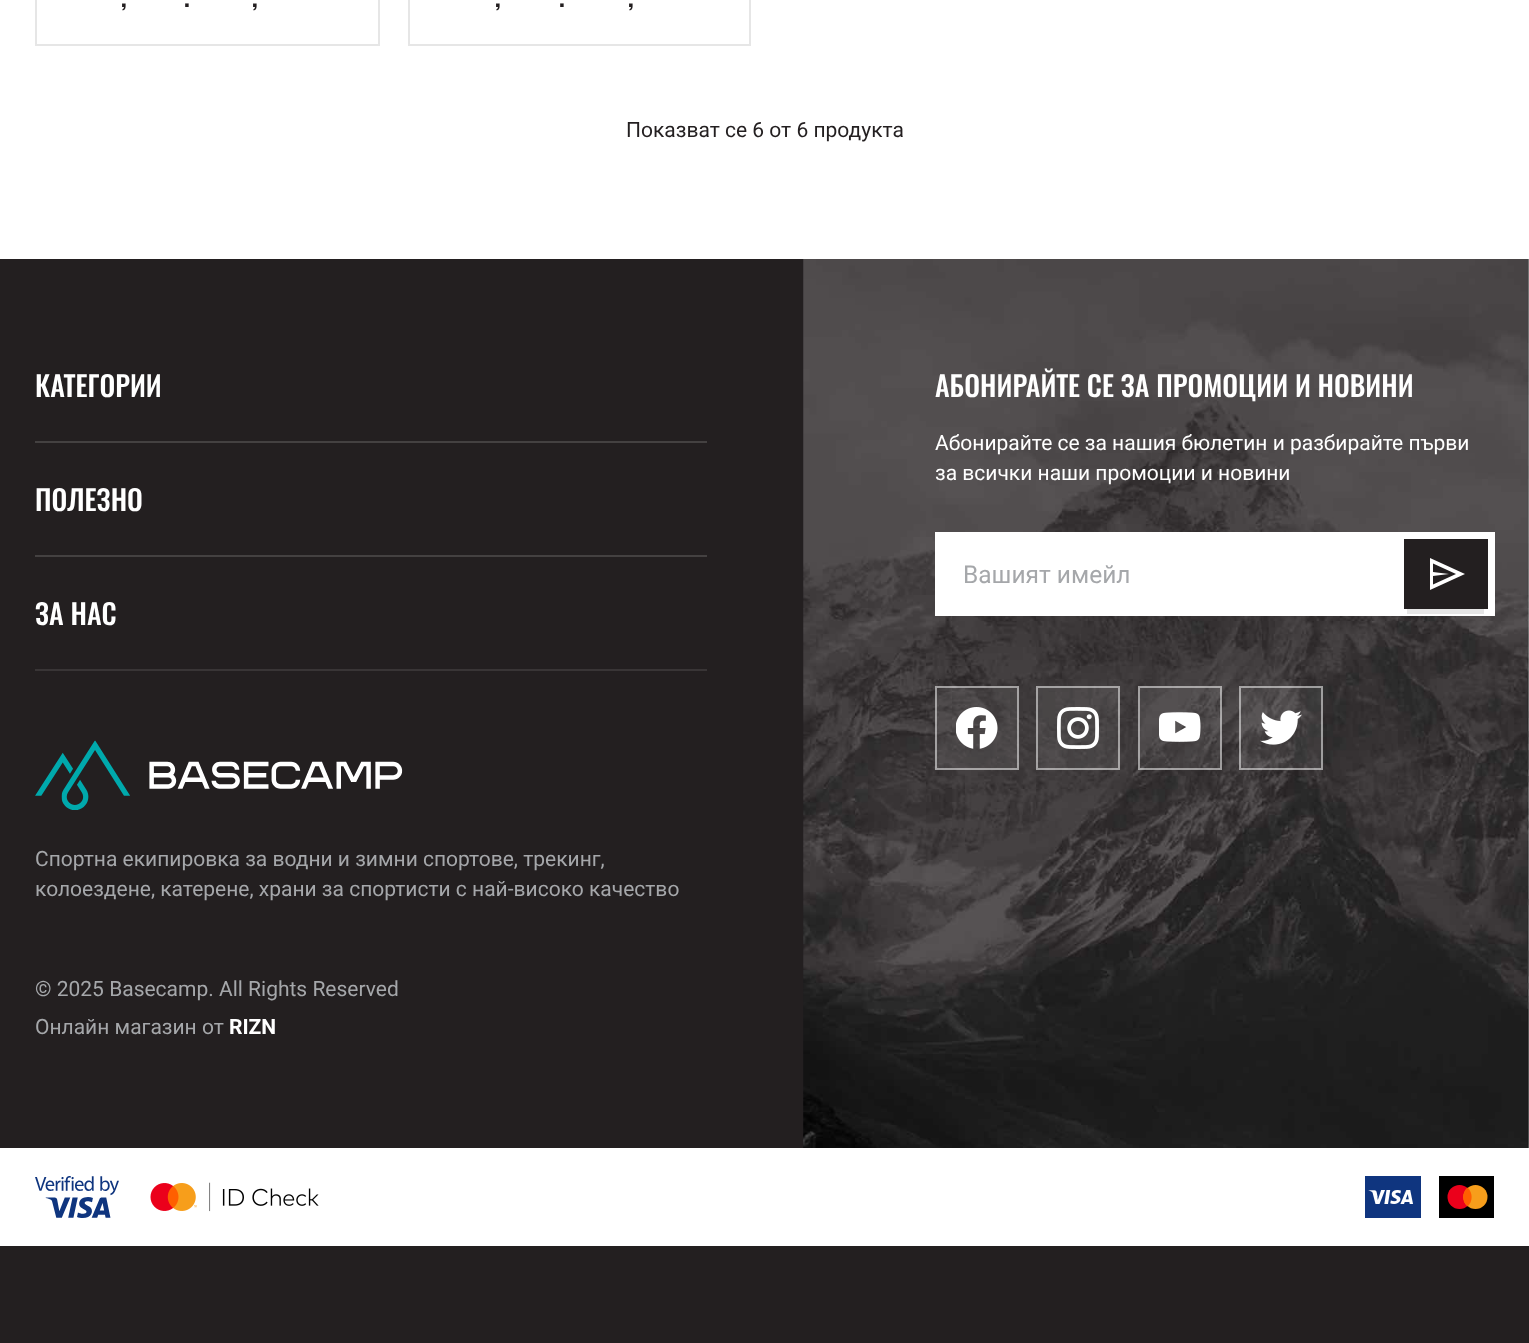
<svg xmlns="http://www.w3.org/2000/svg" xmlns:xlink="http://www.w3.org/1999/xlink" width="1529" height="1343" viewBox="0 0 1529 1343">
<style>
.cls-1{font:600 24.5px Oswald;fill:#231f20}
.cls-2{font:21px Roboto;fill:#231f20}
.cls-3{font:500 28px Oswald;fill:#ffffff}
.cls-4{font:21px Roboto;fill:#a5a7aa}
.cls-5{font:bold 21px Roboto;fill:#ffffff}
.cls-6{font:21px Roboto;fill:#ffffff}
.cls-7{font:24.5px Roboto;fill:#a5a7aa}
</style>
<rect width="100%" height="100%" fill="#ffffff"/>
<rect fill="none" stroke="#e6e6e6" stroke-width="2" x="36" y="-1" width="343" height="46"/>
<rect fill="none" stroke="#e6e6e6" stroke-width="2" x="409" y="-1" width="341" height="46"/>
<rect fill="#231f20" x="0" y="259" width="1529" height="1084"/>
<image xlink:href="image0.png" x="803" y="259" width="726" height="889"/>
<rect fill="#444141" x="35" y="441" width="672" height="2"/>
<rect fill="#444141" x="35" y="555" width="672" height="2"/>
<rect fill="#393536" x="35" y="669" width="672" height="2"/>
<image xlink:href="image1.png" x="35" y="740" width="368" height="70"/>
<rect fill="#ffffff" x="935" y="532" width="560" height="84"/>
<rect fill="#e6e6e6" x="1407" y="609" width="77" height="5"/>
<rect fill="#231f20" x="1404" y="539" width="84" height="70"/>
<path fill="#ffffff" d="M1430 558V590L1465 574ZM1433 563.5L1456 574L1433 584.5V576L1449 574L1433 572Z"/>
<rect fill="#ffffff" fill-opacity="0.07" x="935" y="686" width="84" height="84"/>
<image xlink:href="image2.png" x="956" y="707" width="42" height="42"/>
<rect fill="none" stroke="#ffffff" stroke-opacity="0.5" stroke-width="2" x="936" y="687" width="82" height="82"/>
<rect fill="#ffffff" fill-opacity="0.07" x="1036" y="686" width="84" height="84"/>
<image xlink:href="image3.png" x="1057" y="707" width="42" height="42"/>
<rect fill="none" stroke="#ffffff" stroke-opacity="0.5" stroke-width="2" x="1037" y="687" width="82" height="82"/>
<rect fill="#ffffff" fill-opacity="0.07" x="1138" y="686" width="84" height="84"/>
<image xlink:href="image4.png" x="1159" y="712" width="42" height="30"/>
<rect fill="none" stroke="#ffffff" stroke-opacity="0.5" stroke-width="2" x="1139" y="687" width="82" height="82"/>
<rect fill="#ffffff" fill-opacity="0.07" x="1239" y="686" width="84" height="84"/>
<image xlink:href="image5.png" x="1260" y="710" width="42" height="35"/>
<rect fill="none" stroke="#ffffff" stroke-opacity="0.5" stroke-width="2" x="1240" y="687" width="82" height="82"/>
<rect fill="#ffffff" x="0" y="1148" width="1529" height="98"/>
<image xlink:href="image6.png" x="35" y="1176" width="84" height="42"/>
<image xlink:href="image7.png" x="150" y="1182" width="169" height="30"/>
<image xlink:href="image8.png" x="1365" y="1176" width="56" height="42"/>
<rect fill="#000000" x="1439" y="1176" width="55" height="42"/>
<circle fill="#eb001b" cx="1459.5" cy="1197" r="12"/>
<circle fill="#f79e1b" cx="1475.5" cy="1197" r="12"/>
<path fill="#ff5f00" d="M1463 1197C1463 1200.5 1464.5 1204 1467.5 1206.5C1473 1201.5 1473 1192.5 1467.5 1187.5C1464.5 1190 1463 1193.5 1463 1197Z"/>
<text class="cls-1" x="121" y="7">,</text>
<text class="cls-1" x="184" y="7">.</text>
<text class="cls-1" x="252" y="7">,</text>
<text class="cls-1" x="495" y="7">,</text>
<text class="cls-1" x="559" y="7">.</text>
<text class="cls-1" x="628" y="7">,</text>
<text class="cls-2" x="626" y="137">Показват се 6 от 6 продукта</text>
<text class="cls-3" x="35" y="397">КАТЕГОРИИ</text>
<text class="cls-3" x="35" y="511">ПОЛЕЗНО</text>
<text class="cls-3" x="35" y="625">ЗА НАС</text>
<text class="cls-4"><tspan x="35" y="866">Спортна екипировка за водни и зимни спортове, трекинг,</tspan><tspan x="35" y="896">колоездене, катерене, храни за спортисти с най-високо качество</tspan></text>
<text class="cls-4"><tspan x="35" y="996">© 2025 Basecamp. All Rights Reserved</tspan><tspan x="35" y="1034">Онлайн магазин от</tspan></text>
<text class="cls-5" x="229" y="1034">RIZN</text>
<text class="cls-3" x="935" y="397">АБОНИРАЙТЕ СЕ ЗА ПРОМОЦИИ И НОВИНИ</text>
<text class="cls-6"><tspan x="935" y="450">Абонирайте се за нашия бюлетин и разбирайте първи</tspan><tspan x="935" y="480">за всички наши промоции и новини</tspan></text>
<text class="cls-7" x="963" y="583">Вашият имейл</text>
</svg>
